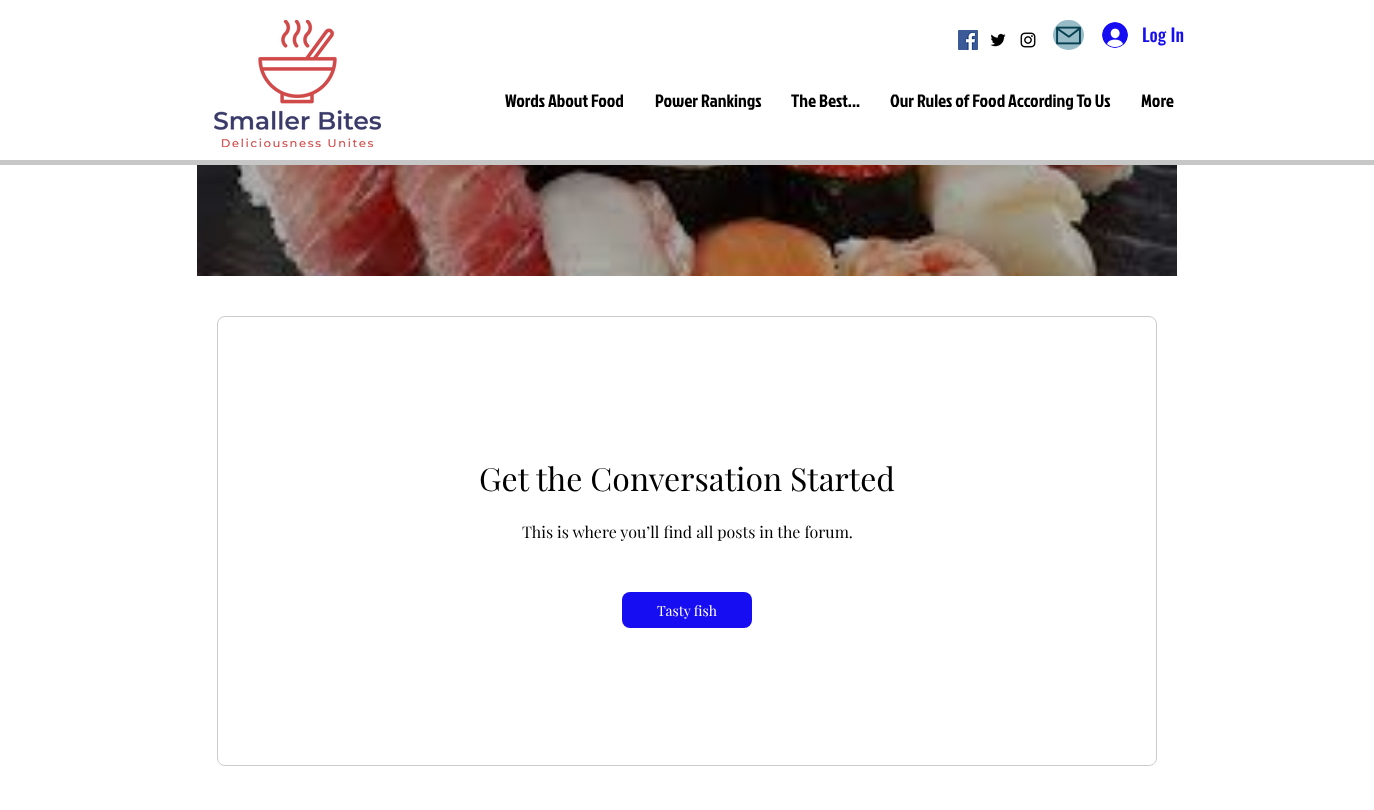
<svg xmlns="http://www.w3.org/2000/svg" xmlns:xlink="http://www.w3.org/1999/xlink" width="1374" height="810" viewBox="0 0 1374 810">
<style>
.cls-1{font:500 18px Oswald;fill:#170df2}
.cls-2{font:18px Jockey One;fill:#000000}
.cls-3{font:32px Playfair Display;fill:#000000}
.cls-4{font:16px Playfair Display;fill:#000000}
.cls-5{font:14px Playfair Display;fill:#ffffff}
</style>
<rect width="100%" height="100%" fill="#ffffff"/>
<image xlink:href="image0.png" x="214" y="20" width="167" height="127"/>
<image xlink:href="image1.png" x="958" y="30" width="20" height="20"/>
<image xlink:href="image2.png" x="990" y="33" width="16" height="14"/>
<image xlink:href="image3.png" x="1020" y="32" width="16" height="16"/>
<rect fill="#97bcc8" x="1053" y="20" width="31" height="30" rx="15"/>
<image xlink:href="image4.png" x="1056" y="26" width="25" height="19"/>
<image xlink:href="image5.png" x="1102" y="22" width="26" height="26"/>
<rect fill="#c7c7c7" x="0" y="160" width="1374" height="5"/>
<image xlink:href="image6.png" x="197" y="165" width="980" height="111"/>
<rect fill="none" stroke="#cccccc" x="217.5" y="316.5" width="939" height="449" rx="7.5"/>
<rect fill="#170df2" x="622" y="592" width="130" height="36" rx="8"/>
<text class="cls-1" x="1142" y="42">Log In</text>
<text class="cls-2" x="505" y="107">Words About Food</text>
<text class="cls-2" x="655" y="107">Power Rankings</text>
<text class="cls-2" x="791" y="107">The Best...</text>
<text class="cls-2" x="890" y="107">Our Rules of Food According To Us</text>
<text class="cls-2" x="1141" y="107">More</text>
<text class="cls-3" x="479" y="491">Get the Conversation Started</text>
<text class="cls-4" x="522" y="538">This is where you’ll find all posts in the forum.</text>
<text class="cls-5" x="657" y="616">Tasty fish</text>
</svg>
